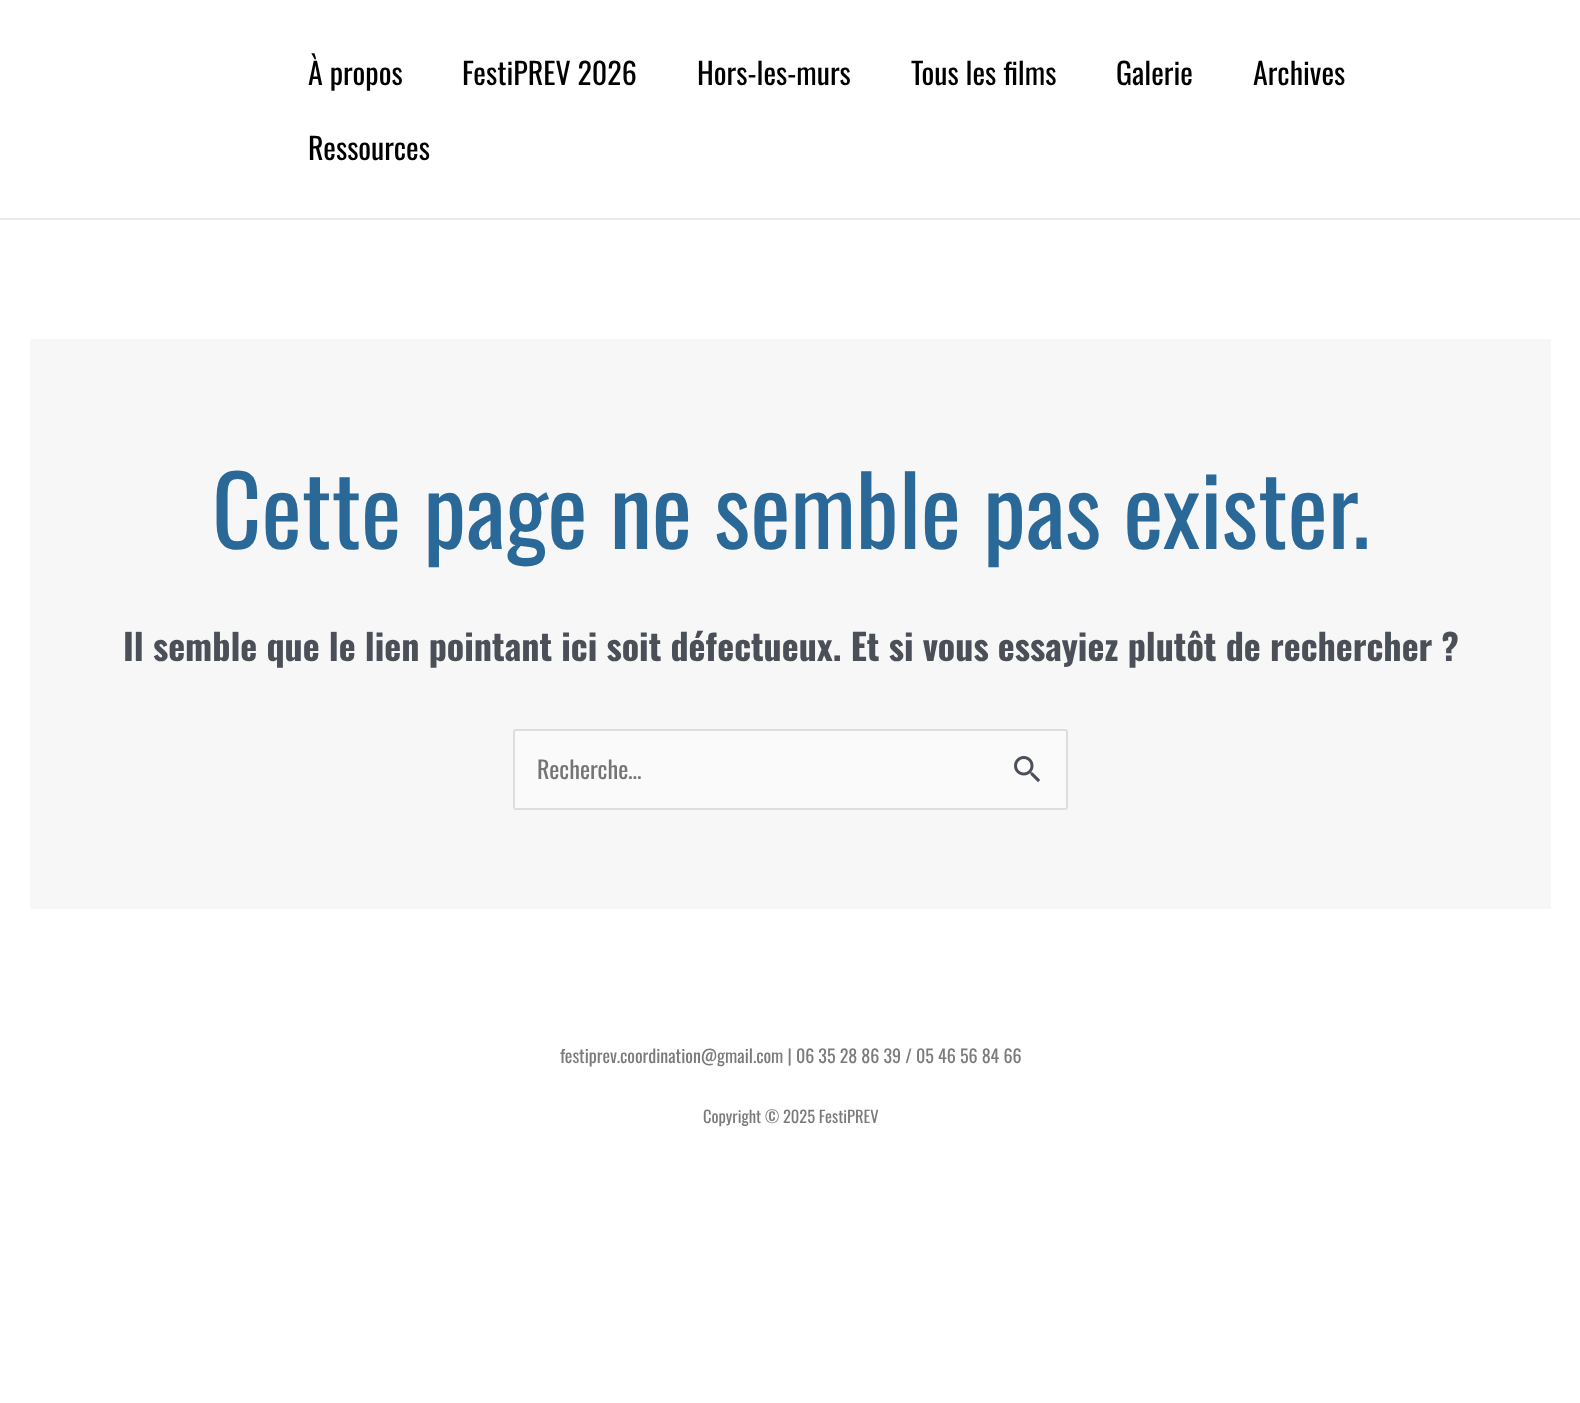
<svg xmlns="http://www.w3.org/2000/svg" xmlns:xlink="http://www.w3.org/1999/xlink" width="1580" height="1403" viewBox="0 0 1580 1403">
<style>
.cls-1{font:30px Oswald;fill:#000000}
.cls-2{font:96px Oswald;fill:#2a6898}
.cls-3{font:bold 36px Oswald;fill:#4b4f58}
.cls-4{font:24px Oswald;fill:#757575}
.cls-5{font:18px Oswald;fill:#7b7b7b}
.cls-6{font:16.5px Oswald;fill:#7b7b7b}
</style>
<rect width="100%" height="100%" fill="#ffffff"/>
<rect fill="#eaeaea" x="0" y="218" width="1580" height="2"/>
<rect fill="#f7f7f7" x="30" y="339" width="1521" height="570"/>
<rect fill="#fafafa" stroke="#dddddd" stroke-width="2" x="514" y="730" width="553" height="79" rx="2"/>
<image xlink:href="image0.png" x="1014" y="756" width="27" height="27"/>
<text class="cls-1" x="308" y="85">À propos</text>
<text class="cls-1" x="462" y="85">FestiPREV 2026</text>
<text class="cls-1" x="697" y="85">Hors-les-murs</text>
<text class="cls-1" x="911" y="85">Tous les films</text>
<text class="cls-1" x="1116" y="85">Galerie</text>
<text class="cls-1" x="1253" y="85">Archives</text>
<text class="cls-1" x="308" y="160">Ressources</text>
<text class="cls-2" x="212" y="549">Cette page ne semble pas exister.</text>
<text class="cls-3" x="123" y="661">Il semble que le lien pointant ici soit défectueux. Et si vous essayiez plutôt de rechercher ?</text>
<text class="cls-4" x="537" y="779">Recherche…</text>
<text class="cls-5" x="560" y="1063">festiprev.coordination@gmail.com | 06 35 28 86 39 / 05 46 56 84 66</text>
<text class="cls-6" x="703" y="1123">Copyright © 2025 FestiPREV</text>
</svg>
